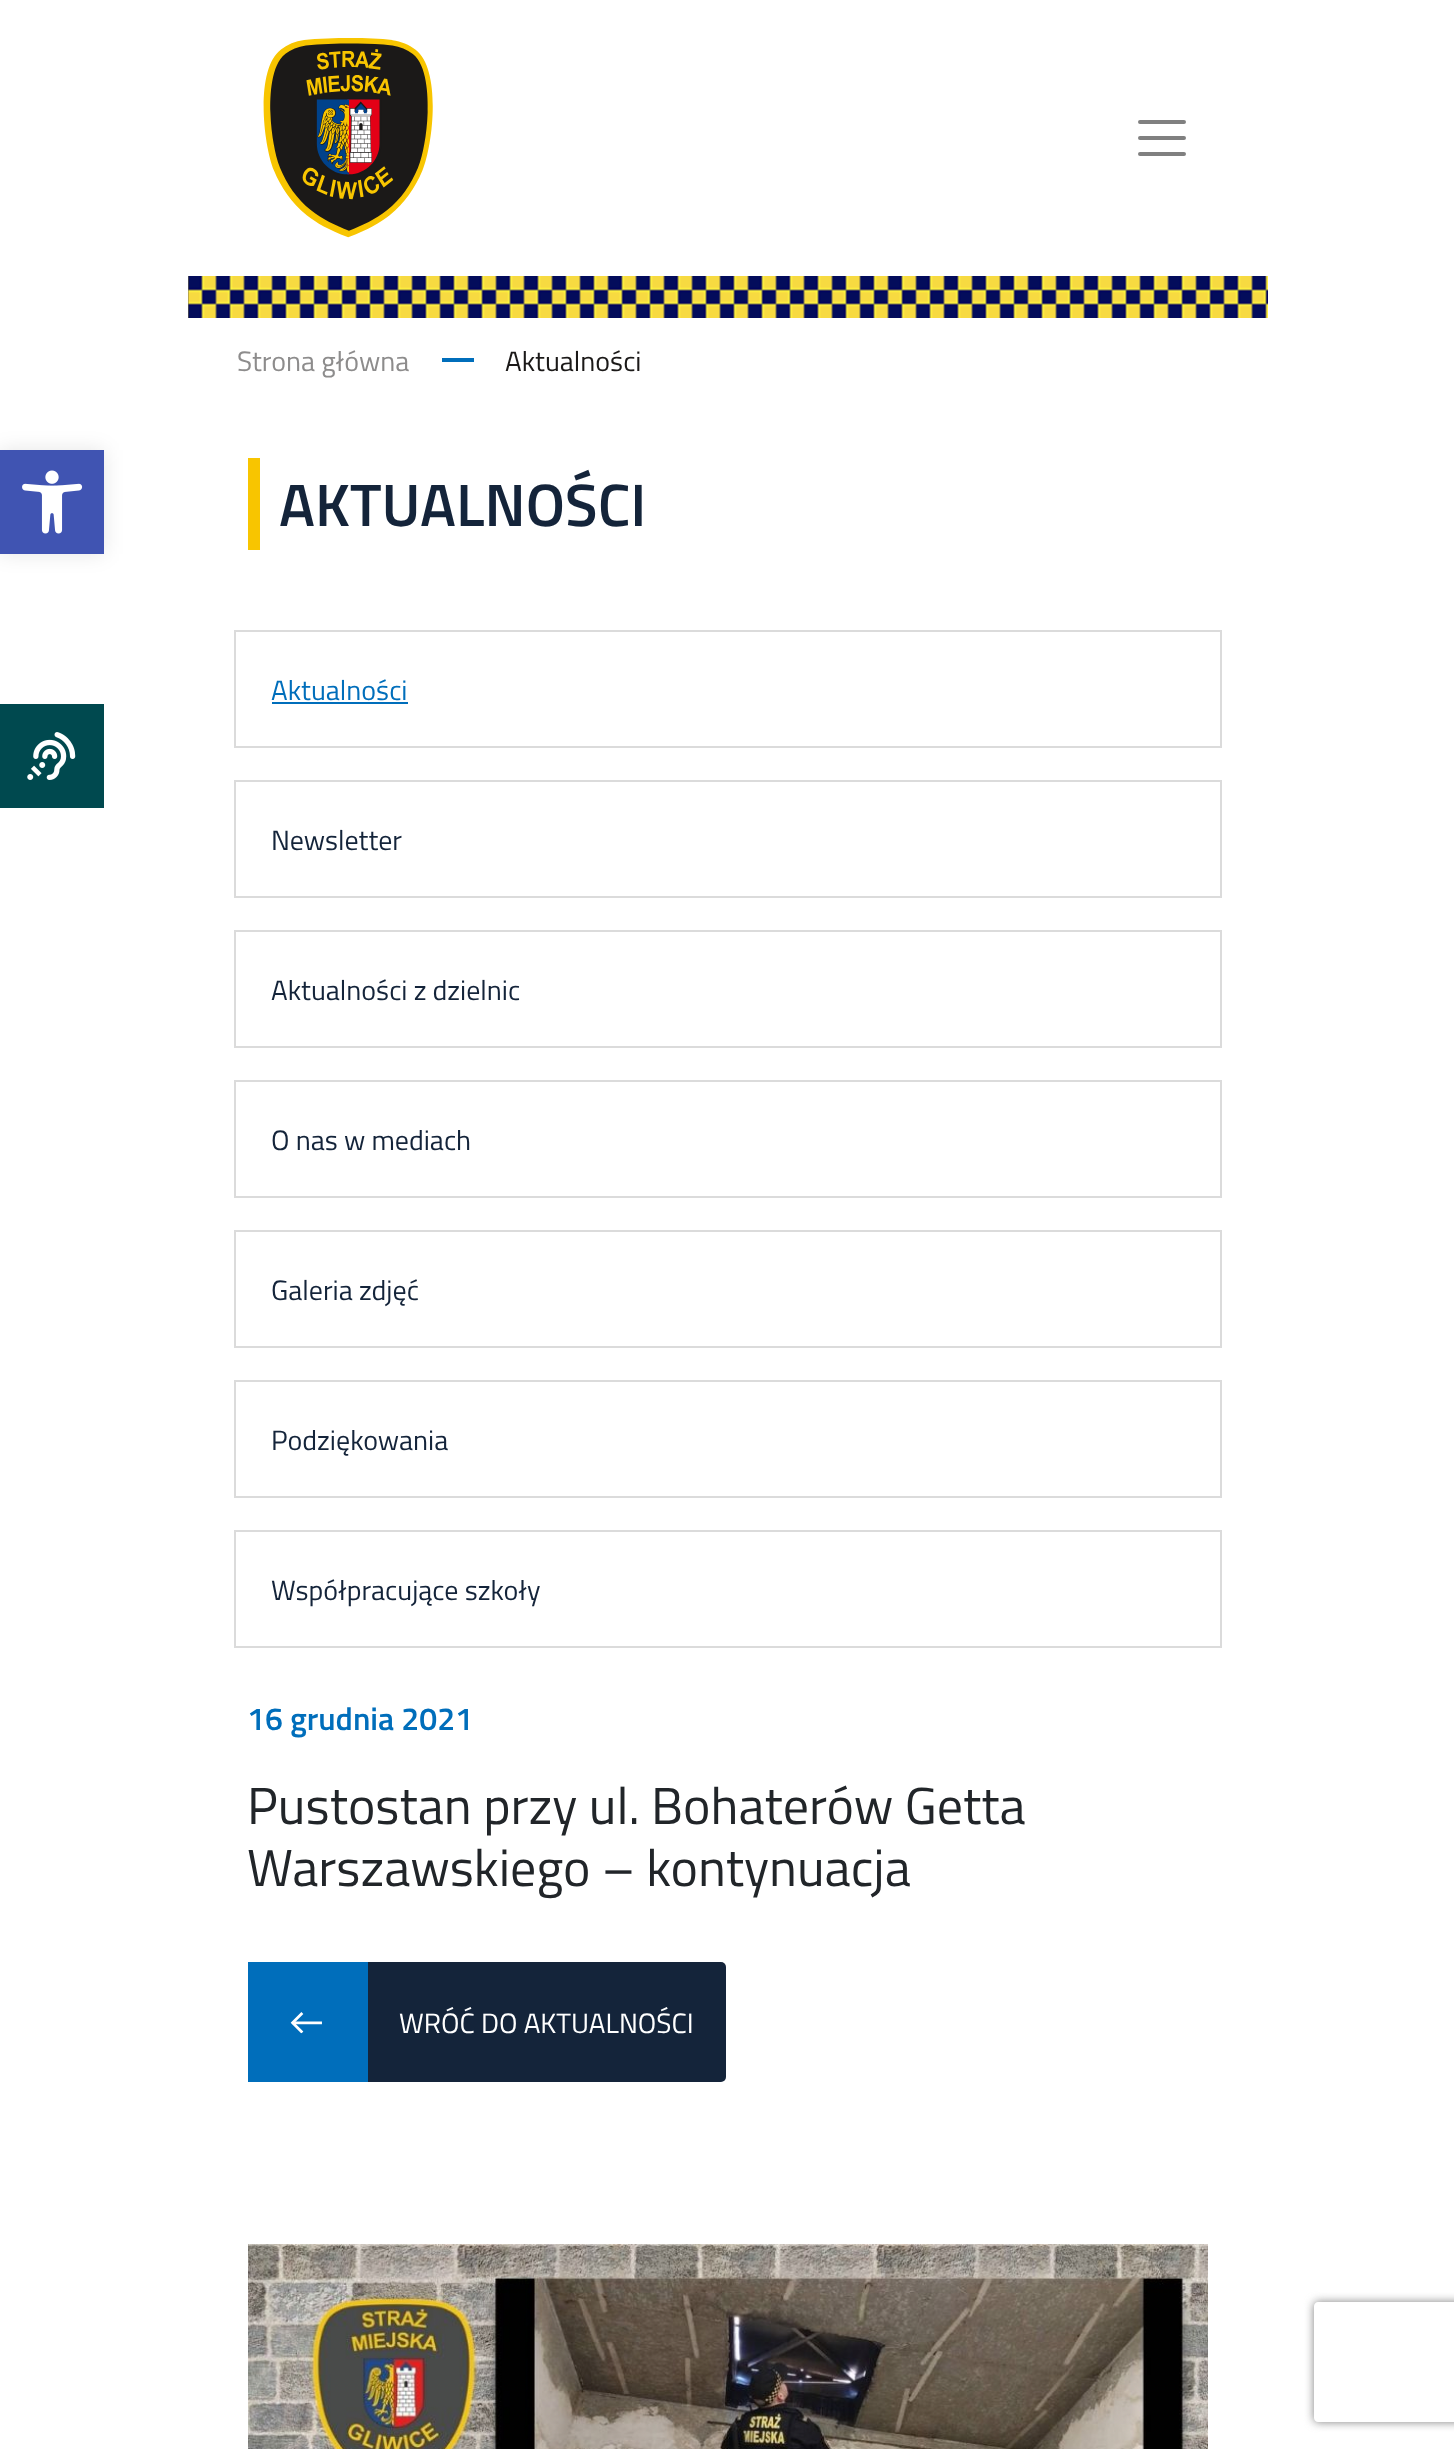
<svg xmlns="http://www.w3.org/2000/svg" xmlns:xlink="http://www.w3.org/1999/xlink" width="1454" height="2449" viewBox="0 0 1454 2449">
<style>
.cls-1{font:28px Titillium Web;fill:#8d8c8c}
.cls-2{font:28px Titillium Web;fill:#1b1918}
.cls-3{font:600 60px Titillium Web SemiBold;fill:#14243a}
.cls-4{font:28px Titillium Web;fill:#006ebb}
.cls-5{font:28px Titillium Web;fill:#14243a}
.cls-6{font:600 32px Titillium Web SemiBold;fill:#006ebb}
.cls-7{font:52px Titillium Web;fill:#212529}
.cls-8{font:28px Titillium Web;fill:#ffffff}
</style>
<defs>
<clipPath id="clip1"><path d="M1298 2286H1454V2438H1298ZM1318 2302H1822C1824 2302 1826 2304 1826 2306V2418C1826 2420 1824 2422 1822 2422H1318C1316 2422 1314 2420 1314 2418V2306C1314 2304 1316 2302 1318 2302Z" clip-rule="evenodd"/></clipPath>
</defs>
<rect width="100%" height="100%" fill="#ffffff"/>
<rect fill="#000000" fill-opacity="0.1" filter="blur(10px)" x="0" y="450" width="104" height="104"/>
<rect fill="#4054b2" x="0" y="450" width="104" height="104"/>
<image xlink:href="image0.png" x="22" y="470" width="61" height="64"/>
<image xlink:href="image1.png" x="263" y="38" width="170" height="200"/>
<path fill="none" stroke="#808080" stroke-width="4" stroke-linecap="round" d="M1140 122H1184M1140 138H1184M1140 154H1184"/>
<image xlink:href="image2.png" x="188" y="276" width="1080" height="42"/>
<rect fill="#006ebb" x="442" y="358" width="32" height="4"/>
<rect fill="#f8c500" x="248" y="458" width="12" height="92"/>
<rect fill="none" stroke="#dbdbdb" stroke-width="2" x="235" y="631" width="986" height="116"/>
<rect fill="#006ebb" x="272" y="702" width="136" height="2"/>
<rect fill="none" stroke="#dbdbdb" stroke-width="2" x="235" y="781" width="986" height="116"/>
<rect fill="none" stroke="#dbdbdb" stroke-width="2" x="235" y="931" width="986" height="116"/>
<rect fill="none" stroke="#dbdbdb" stroke-width="2" x="235" y="1081" width="986" height="116"/>
<rect fill="none" stroke="#dbdbdb" stroke-width="2" x="235" y="1231" width="986" height="116"/>
<rect fill="none" stroke="#dbdbdb" stroke-width="2" x="235" y="1381" width="986" height="116"/>
<rect fill="none" stroke="#dbdbdb" stroke-width="2" x="235" y="1531" width="986" height="116"/>
<rect fill="#14243a" x="248" y="1962" width="478" height="120" rx="5"/>
<rect fill="#006ebb" x="248" y="1962" width="120" height="120"/>
<image xlink:href="image3.png" x="290" y="2012" width="32" height="22"/>
<image xlink:href="image4.png" x="248" y="2244" width="960" height="205"/>
<rect fill="#00494f" x="0" y="704" width="104" height="104"/>
<image xlink:href="image5.png" x="27" y="732" width="49" height="48"/>
<g clip-path="url(#clip1)">
<rect fill="#808080" filter="blur(5px)" x="1314" y="2302" width="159" height="120" rx="4"/>
</g>
<text class="cls-1" x="237" y="371">Strona główna</text>
<text class="cls-2" x="505" y="371">Aktualności</text>
<text class="cls-3" x="279" y="526">AKTUALNOŚCI</text>
<text class="cls-4" x="271" y="700">Aktualności</text>
<text class="cls-5" x="271" y="850">Newsletter</text>
<text class="cls-5" x="271" y="1000">Aktualności z dzielnic</text>
<text class="cls-5" x="271" y="1150">O nas w mediach</text>
<text class="cls-5" x="271" y="1300">Galeria zdjęć</text>
<text class="cls-5" x="271" y="1450">Podziękowania</text>
<text class="cls-5" x="271" y="1600">Współpracujące szkoły</text>
<text class="cls-6" x="247" y="1730">16 grudnia 2021</text>
<text class="cls-7"><tspan x="247" y="1824">Pustostan przy ul. Bohaterów Getta</tspan><tspan x="247" y="1886">Warszawskiego – kontynuacja</tspan></text>
<text class="cls-8" x="399" y="2033">WRÓĆ DO AKTUALNOŚCI</text>
</svg>
